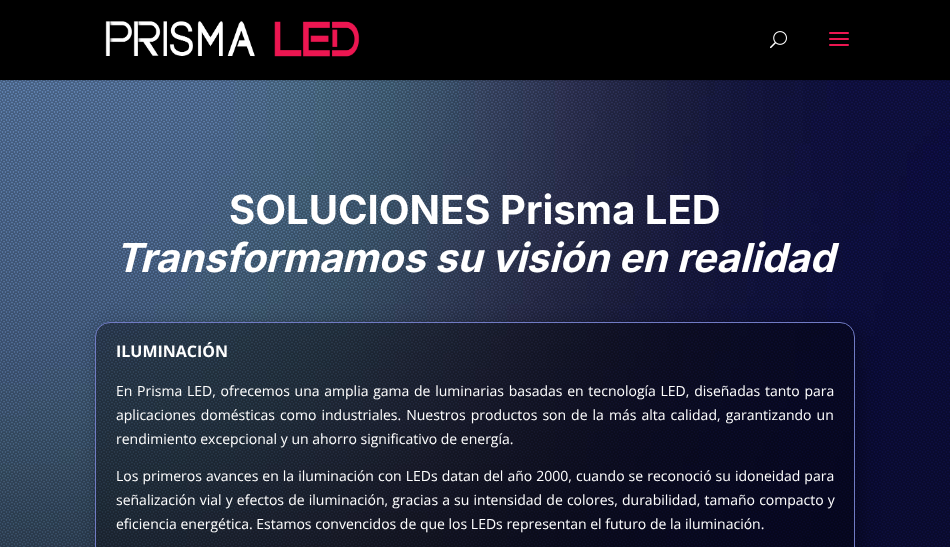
<svg xmlns="http://www.w3.org/2000/svg" xmlns:xlink="http://www.w3.org/1999/xlink" width="950" height="547" viewBox="0 0 950 547">
<style>
.cls-1{font:bold 40px Inter;fill:#ffffff}
.cls-2{font:italic bold 40px Inter;fill:#ffffff}
.cls-3{font:bold 16px Open Sans;fill:#ffffff}
.cls-4{font:14px Open Sans;fill:#ffffff}
</style>
<defs>
<clipPath id="clip1"><path d="M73 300H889V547H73ZM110 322H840C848.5 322 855 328.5 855 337V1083C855 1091.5 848.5 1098 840 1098H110C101.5 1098 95 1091.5 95 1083V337C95 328.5 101.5 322 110 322Z" clip-rule="evenodd"/></clipPath>
</defs>
<rect width="100%" height="100%" fill="#ffffff"/>
<image xlink:href="image3.png" x="0" y="80" width="950" height="467"/>
<image xlink:href="image4.png" x="0" y="80" width="950" height="467"/>
<rect fill="#000000" fill-opacity="0.1" x="0" y="80" width="950" height="1"/>
<rect fill="#000000" x="0" y="0" width="950" height="80"/>
<image xlink:href="image0.png" x="105" y="21" width="255" height="36"/>
<image xlink:href="image1.png" x="770" y="31" width="17" height="18"/>
<image xlink:href="image2.png" x="829" y="32" width="20" height="14"/>
<g clip-path="url(#clip1)">
<rect fill="#000000" fill-opacity="0.3" filter="blur(9px)" x="101" y="328" width="760" height="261" rx="15"/>
</g>
<rect fill="#000000" fill-opacity="0.35" stroke="#717bc4" x="95.5" y="322.5" width="759" height="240" rx="14.5"/>
<text class="cls-1" x="229" y="224">SOLUCIONES Prisma LED</text>
<text class="cls-2" x="115" y="272">Transformamos su visión en realidad</text>
<text class="cls-3" x="116" y="357">ILUMINACIÓN</text>
<text class="cls-4"><tspan x="116" y="396" word-spacing="1.1">En Prisma LED, ofrecemos una amplia gama de luminarias basadas en tecnología LED, diseñadas tanto para</tspan><tspan x="116" y="420" word-spacing="1.4">aplicaciones domésticas como industriales. Nuestros productos son de la más alta calidad, garantizando un</tspan><tspan x="116" y="444">rendimiento excepcional y un ahorro significativo de energía.</tspan></text>
<text class="cls-4"><tspan x="116" y="481" word-spacing="0.4">Los primeros avances en la iluminación con LEDs datan del año 2000, cuando se reconoció su idoneidad para</tspan><tspan x="116" y="505" word-spacing="0.5">señalización vial y efectos de iluminación, gracias a su intensidad de colores, durabilidad, tamaño compacto y</tspan><tspan x="116" y="529">eficiencia energética. Estamos convencidos de que los LEDs representan el futuro de la iluminación.</tspan></text>
</svg>
